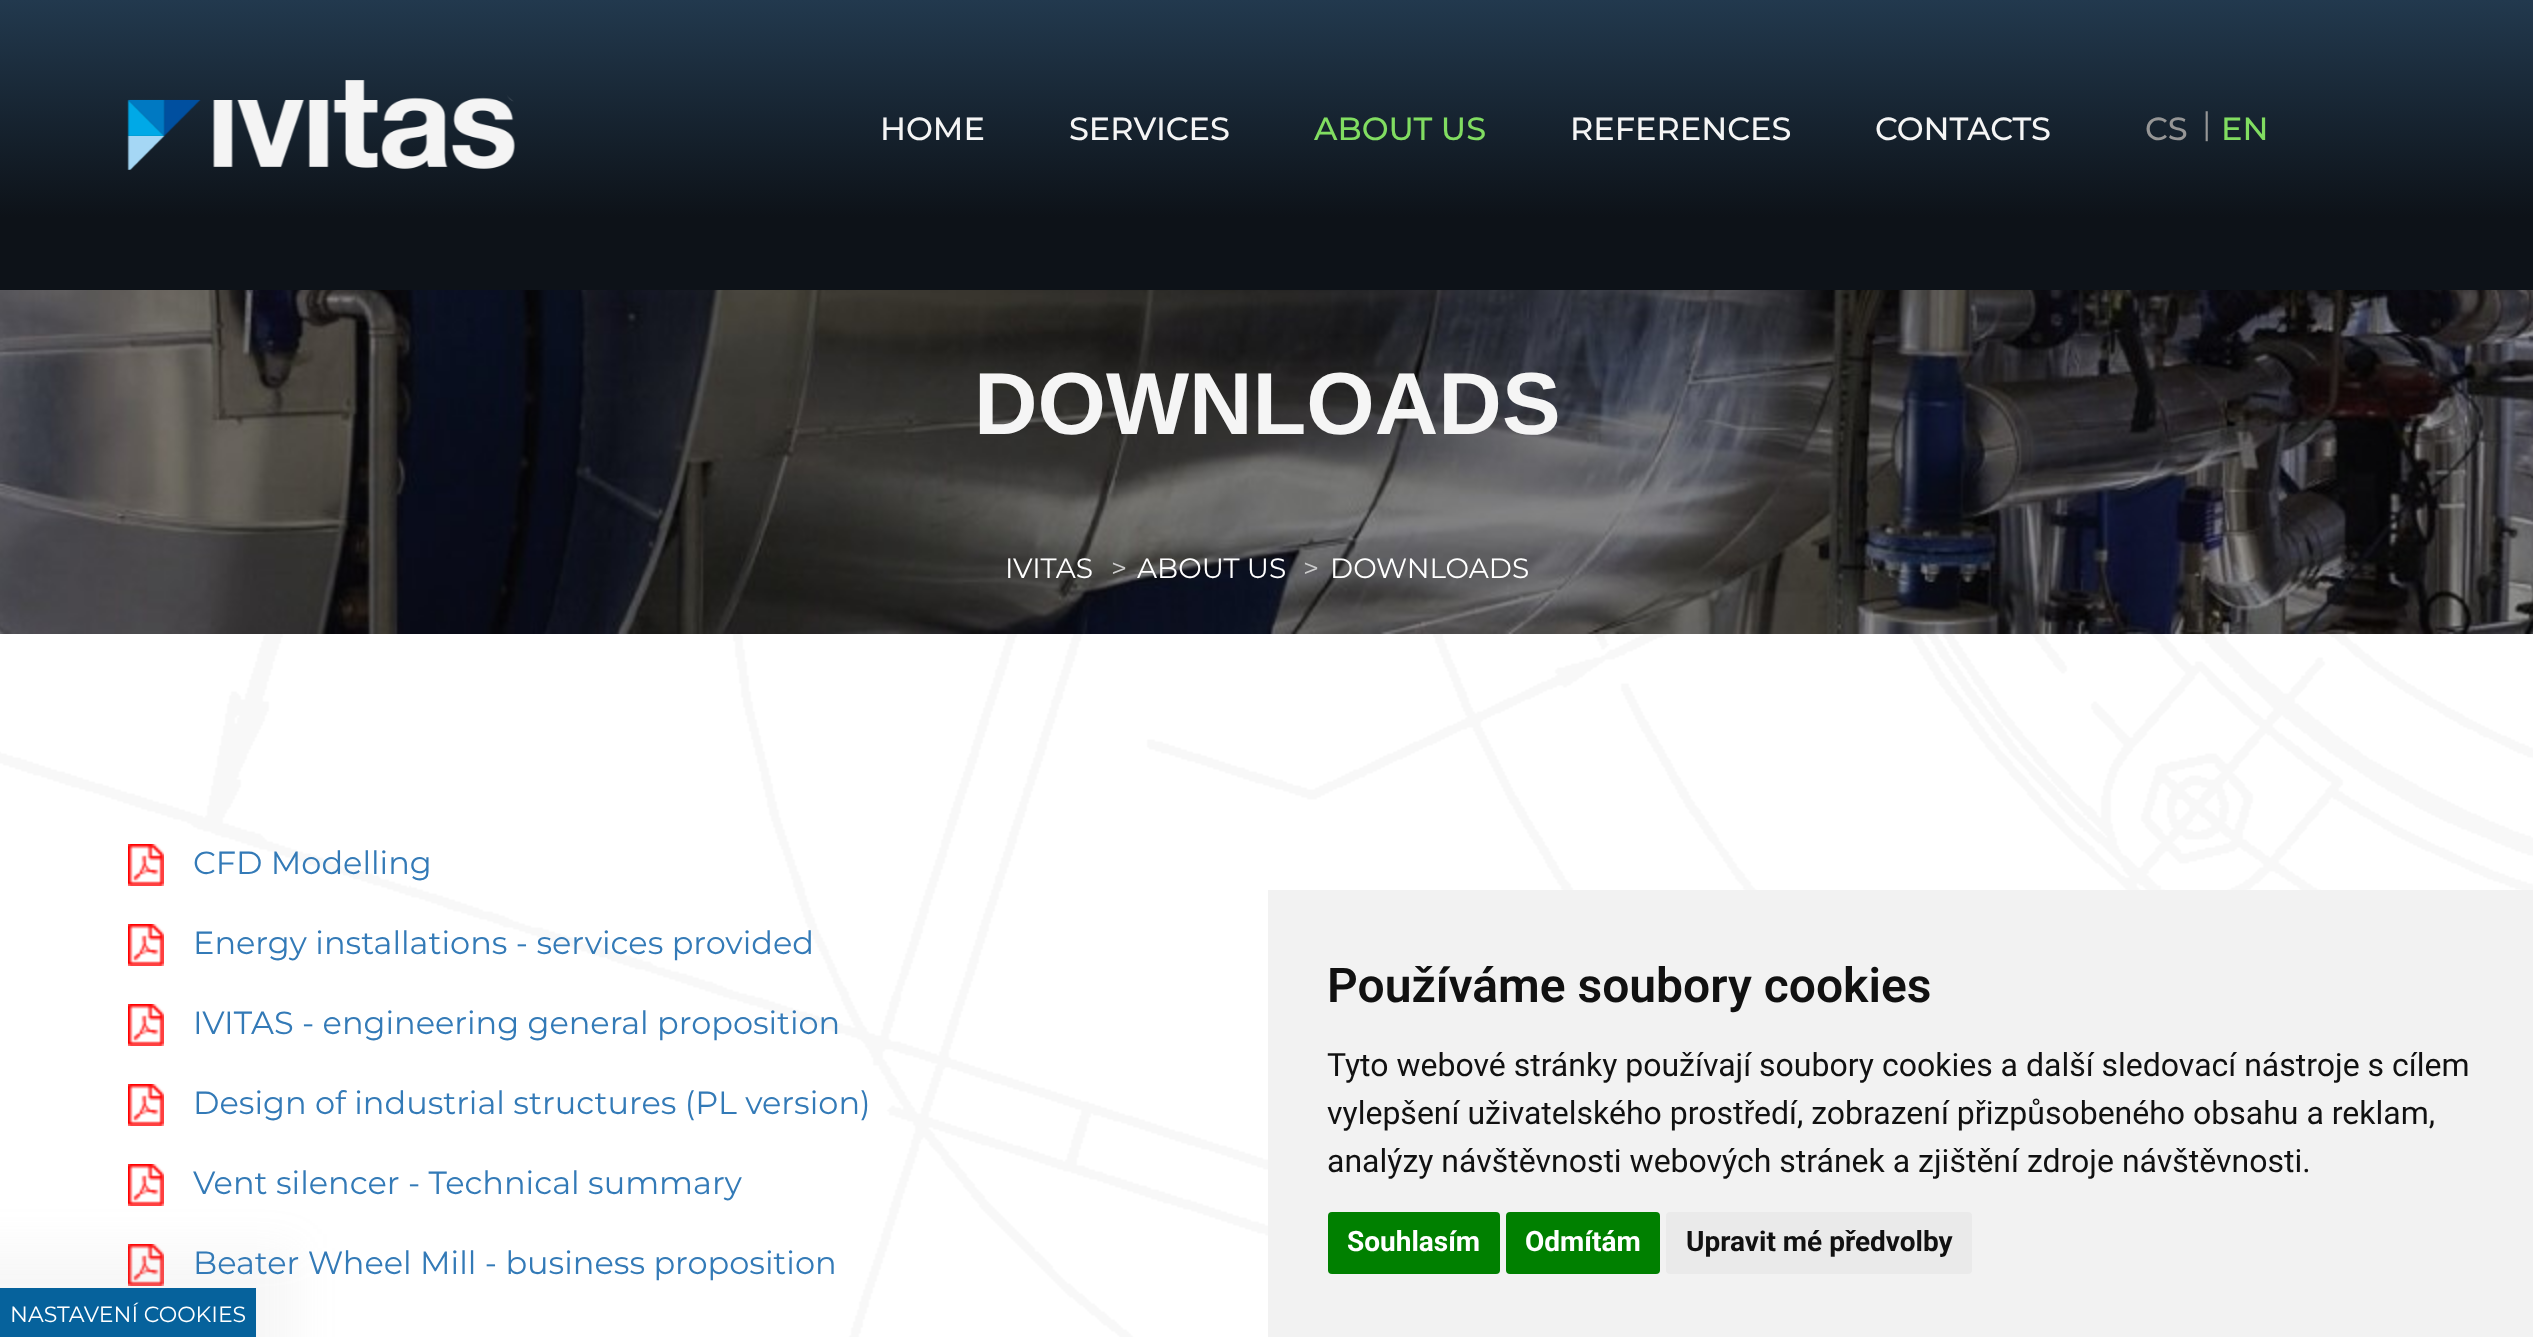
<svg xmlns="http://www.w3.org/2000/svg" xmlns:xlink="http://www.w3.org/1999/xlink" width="2533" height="1337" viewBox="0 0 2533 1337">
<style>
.cls-1{font:500 32px Montserrat;fill:#f5f5f5}
.cls-2{font:500 32px Montserrat;fill:#81dd61}
.cls-3{font:500 32px Montserrat;fill:#969696}
.cls-4{font:32px Montserrat;fill:#969696}
.cls-5{font:bold 88px Liberation Sans;fill:#f5f5f5}
.cls-6{font:28px Montserrat;fill:#ffffff}
.cls-7{font:28px Montserrat;fill:#cccccc}
.cls-8{font:32px Montserrat;fill:#337ab7}
.cls-9{font:600 48px Roboto;fill:#111111}
.cls-10{font:32px Roboto;fill:#111111}
.cls-11{font:bold 28px Roboto;fill:#ffffff}
.cls-12{font:bold 28px Roboto;fill:#111111}
.cls-13{font:22px Montserrat;fill:#ffffff}
</style>
<defs>
<linearGradient id="g1" gradientUnits="userSpaceOnUse" x1="1267" y1="0" x2="1267" y2="290"><stop offset="0" stop-color="#22394e"/><stop offset="0.75" stop-color="#0d1218"/></linearGradient>
</defs>
<rect width="100%" height="100%" fill="#ffffff"/>
<rect fill="url(#g1)" x="0" y="0" width="2533" height="290"/>
<image xlink:href="image0.png" x="127" y="80" width="388" height="90"/>
<image xlink:href="image1.png" x="0" y="290" width="2533" height="344"/>
<image xlink:href="image2.png" x="0" y="634" width="2533" height="703"/>
<image xlink:href="image3.png" x="128" y="844" width="36" height="42"/>
<image xlink:href="image3.png" x="128" y="924" width="36" height="42"/>
<image xlink:href="image3.png" x="128" y="1004" width="36" height="42"/>
<image xlink:href="image3.png" x="128" y="1084" width="36" height="42"/>
<image xlink:href="image3.png" x="128" y="1164" width="36" height="42"/>
<image xlink:href="image3.png" x="128" y="1244" width="36" height="42"/>
<rect fill="#f2f2f2" x="1268" y="890" width="1265" height="447"/>
<rect fill="#008000" x="1328" y="1212" width="172" height="62" rx="4"/>
<rect fill="#008000" x="1506" y="1212" width="154" height="62" rx="4"/>
<rect fill="#eaeaea" x="1666" y="1212" width="306" height="62" rx="4"/>
<rect fill="#b3b3b3" fill-opacity="0.1" filter="blur(20px)" x="-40" y="1248" width="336" height="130"/>
<rect fill="#06629c" x="0" y="1288" width="256" height="49"/>
<text class="cls-1" x="880" y="140">HOME</text>
<text class="cls-1" x="1069" y="140">SERVICES</text>
<text class="cls-2" x="1314" y="140">ABOUT US</text>
<text class="cls-1" x="1570" y="140">REFERENCES</text>
<text class="cls-1" x="1875" y="140">CONTACTS</text>
<text class="cls-3" x="2145" y="140">CS</text>
<text class="cls-4" x="2202" y="135">|</text>
<text class="cls-2" x="2221" y="140">EN</text>
<text class="cls-5" x="974" y="434">DOWNLOADS</text>
<text class="cls-6" x="1005" y="578">IVITAS</text>
<text class="cls-7" x="1111" y="578">&gt;</text>
<text class="cls-6" x="1137" y="578">ABOUT US</text>
<text class="cls-7" x="1303" y="578">&gt;</text>
<text class="cls-6" x="1330" y="578">DOWNLOADS</text>
<text class="cls-8" x="193" y="874">CFD Modelling</text>
<text class="cls-8" x="193" y="954">Energy installations - services provided</text>
<text class="cls-8" x="193" y="1034">IVITAS - engineering general proposition</text>
<text class="cls-8" x="193" y="1114">Design of industrial structures (PL version)</text>
<text class="cls-8" x="193" y="1194">Vent silencer - Technical summary</text>
<text class="cls-8" x="193" y="1274">Beater Wheel Mill - business proposition</text>
<text class="cls-9" x="1327" y="1002">Používáme soubory cookies</text>
<text class="cls-10"><tspan x="1327" y="1076">Tyto webové stránky používají soubory cookies a další sledovací nástroje s cílem</tspan><tspan x="1327" y="1124">vylepšení uživatelského prostředí, zobrazení přizpůsobeného obsahu a reklam,</tspan><tspan x="1327" y="1172">analýzy návštěvnosti webových stránek a zjištění zdroje návštěvnosti.</tspan></text>
<text class="cls-11" x="1347" y="1251">Souhlasím</text>
<text class="cls-11" x="1525" y="1251">Odmítám</text>
<text class="cls-12" x="1686" y="1251">Upravit mé předvolby</text>
<text class="cls-13" x="10" y="1322">NASTAVENÍ COOKIES</text>
</svg>
